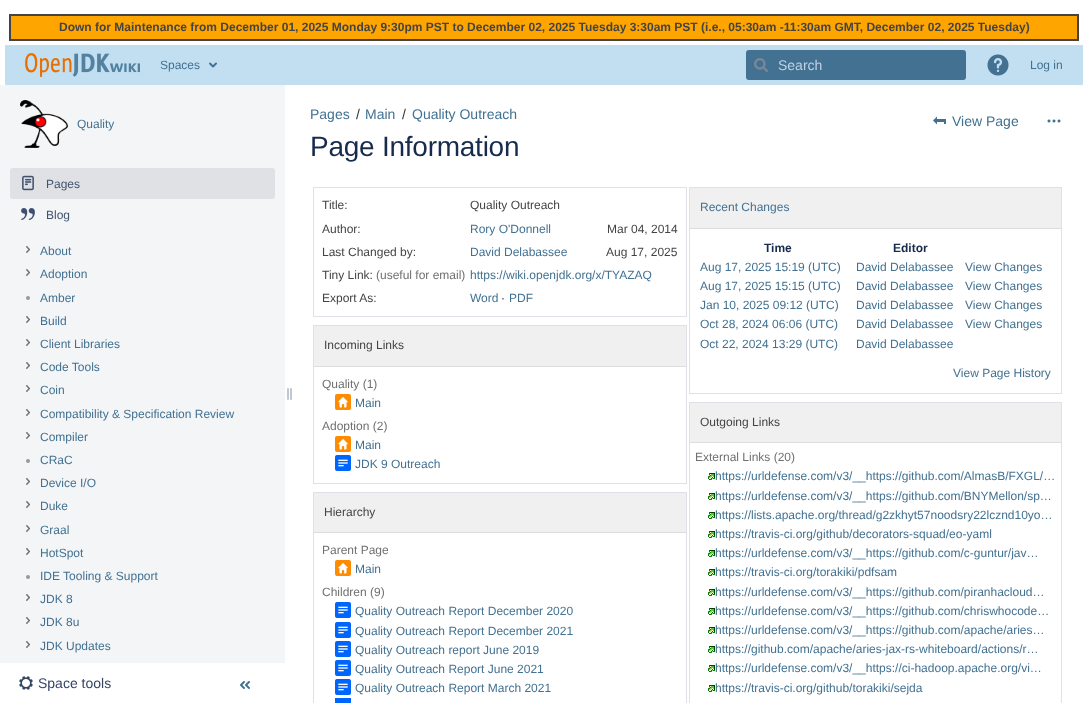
<svg xmlns="http://www.w3.org/2000/svg" xmlns:xlink="http://www.w3.org/1999/xlink" width="1088" height="703" viewBox="0 0 1088 703">
<style>
.cls-1{font:bold 12px Liberation Sans;fill:#444444}
.cls-2{font:12px Liberation Sans;fill:#427191}
.cls-3{font:14px Liberation Sans;fill:#bfd3e9}
.cls-4{font:12px Liberation Sans;fill:#42526e}
.cls-5{font:14px Liberation Sans;fill:#344563}
.cls-6{font:14px Liberation Sans;fill:#427191}
.cls-7{font:14px Liberation Sans;fill:#333333}
.cls-8{font:28px Liberation Sans;letter-spacing:-0.25px;fill:#172b4d}
.cls-9{font:12px Liberation Sans;fill:#444444}
.cls-10{font:12px Liberation Sans;fill:#707070}
.cls-11{font:bold 12px Liberation Sans;fill:#172b4d}
</style>
<rect width="100%" height="100%" fill="#ffffff"/>
<rect fill="#ffa500" stroke="#444444" stroke-width="2" x="10" y="15" width="1068" height="25"/>
<rect fill="#c2dff2" x="5" y="45" width="1078" height="40"/>
<image xlink:href="image0.png" x="25" y="53" width="115" height="24"/>
<image xlink:href="image1.png" x="209" y="62" width="8" height="6"/>
<rect fill="#427191" x="746" y="50" width="220" height="30" rx="3"/>
<image xlink:href="image2.png" x="754" y="58" width="14" height="14"/>
<image xlink:href="image3.png" x="987" y="54" width="22" height="22"/>
<rect fill="#f4f5f7" x="0" y="85" width="285" height="578"/>
<image xlink:href="image4.png" x="20" y="100" width="48" height="48"/>
<rect fill="#dfe1e5" x="10" y="168" width="265" height="31" rx="3"/>
<image xlink:href="image5.png" x="22" y="175" width="12" height="16"/>
<image xlink:href="image6.png" x="21" y="208" width="14" height="12"/>
<image xlink:href="image7.png" x="26" y="246" width="4" height="7"/>
<image xlink:href="image7.png" x="26" y="269" width="4" height="7"/>
<circle fill="#999999" cx="28" cy="298" r="2"/>
<image xlink:href="image7.png" x="26" y="316" width="4" height="7"/>
<image xlink:href="image7.png" x="26" y="339" width="4" height="7"/>
<image xlink:href="image7.png" x="26" y="362" width="4" height="7"/>
<image xlink:href="image7.png" x="26" y="385" width="4" height="7"/>
<image xlink:href="image7.png" x="26" y="409" width="4" height="7"/>
<image xlink:href="image7.png" x="26" y="432" width="4" height="7"/>
<circle fill="#999999" cx="28" cy="461" r="2"/>
<image xlink:href="image7.png" x="26" y="478" width="4" height="7"/>
<image xlink:href="image7.png" x="26" y="501" width="4" height="7"/>
<image xlink:href="image7.png" x="26" y="525" width="4" height="7"/>
<image xlink:href="image7.png" x="26" y="548" width="4" height="7"/>
<circle fill="#999999" cx="28" cy="577" r="2"/>
<image xlink:href="image7.png" x="26" y="594" width="4" height="7"/>
<image xlink:href="image7.png" x="26" y="617" width="4" height="7"/>
<image xlink:href="image7.png" x="26" y="641" width="4" height="7"/>
<image xlink:href="image8.png" x="287" y="388" width="5" height="12"/>
<image xlink:href="image9.png" x="19" y="676" width="14" height="14"/>
<image xlink:href="image10.png" x="240" y="681" width="10" height="8"/>
<image xlink:href="image11.png" x="933" y="116" width="13" height="9"/>
<image xlink:href="image12.png" x="1047" y="119" width="14" height="4"/>
<rect fill="none" stroke="#dfe1e6" x="313.5" y="187.5" width="373" height="129"/>
<rect fill="none" stroke="#dfe1e6" x="313.5" y="325.5" width="373" height="158"/>
<rect fill="#f0f0f0" x="314" y="326" width="372" height="40"/>
<rect fill="#dddddd" x="314" y="366" width="372" height="1"/>
<image xlink:href="image13.png" x="335" y="394" width="16" height="16"/>
<image xlink:href="image13.png" x="335" y="436" width="16" height="16"/>
<image xlink:href="image14.png" x="335" y="455" width="16" height="16"/>
<rect fill="none" stroke="#dfe1e6" x="313.5" y="492.5" width="373" height="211"/>
<rect fill="#f0f0f0" x="314" y="493" width="372" height="39"/>
<rect fill="#dddddd" x="314" y="532" width="372" height="1"/>
<image xlink:href="image13.png" x="335" y="560" width="16" height="16"/>
<image xlink:href="image14.png" x="335" y="602" width="16" height="16"/>
<image xlink:href="image14.png" x="335" y="622" width="16" height="16"/>
<image xlink:href="image14.png" x="335" y="641" width="16" height="16"/>
<image xlink:href="image14.png" x="335" y="660" width="16" height="16"/>
<image xlink:href="image14.png" x="335" y="679" width="16" height="16"/>
<rect fill="#0065ff" x="335" y="698" width="16" height="5"/>
<rect fill="none" stroke="#dfe1e6" x="689.5" y="187.5" width="372" height="206"/>
<rect fill="#f0f0f0" x="690" y="188" width="371" height="40"/>
<rect fill="#dddddd" x="690" y="228" width="371" height="1"/>
<rect fill="none" stroke="#dfe1e6" x="689.5" y="402.5" width="372" height="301"/>
<rect fill="#f0f0f0" x="690" y="403" width="371" height="39"/>
<rect fill="#dddddd" x="690" y="442" width="371" height="1"/>
<image xlink:href="image15.png" x="708" y="473" width="7" height="7"/>
<image xlink:href="image15.png" x="708" y="493" width="7" height="7"/>
<image xlink:href="image15.png" x="708" y="512" width="7" height="7"/>
<image xlink:href="image15.png" x="708" y="531" width="7" height="7"/>
<image xlink:href="image15.png" x="708" y="550" width="7" height="7"/>
<image xlink:href="image15.png" x="708" y="569" width="7" height="7"/>
<image xlink:href="image15.png" x="708" y="589" width="7" height="7"/>
<image xlink:href="image15.png" x="708" y="608" width="7" height="7"/>
<image xlink:href="image15.png" x="708" y="627" width="7" height="7"/>
<image xlink:href="image15.png" x="708" y="646" width="7" height="7"/>
<image xlink:href="image15.png" x="708" y="665" width="7" height="7"/>
<image xlink:href="image15.png" x="708" y="685" width="7" height="7"/>
<text class="cls-1" x="59" y="31">Down for Maintenance from December 01, 2025 Monday 9:30pm PST to December 02, 2025 Tuesday 3:30am PST (i.e., 05:30am -11:30am GMT, December 02, 2025 Tuesday)</text>
<text class="cls-2" x="160" y="69">Spaces</text>
<text class="cls-3" x="778" y="70">Search</text>
<text class="cls-2" x="1030" y="69">Log in</text>
<text class="cls-2" x="77" y="128">Quality</text>
<text class="cls-4" x="46" y="188">Pages</text>
<text class="cls-4" x="46" y="219">Blog</text>
<text class="cls-2"><tspan x="40" y="255">About</tspan><tspan x="40" y="278">Adoption</tspan></text>
<text class="cls-2"><tspan x="40" y="302">Amber</tspan><tspan x="40" y="325">Build</tspan><tspan x="40" y="348">Client Libraries</tspan><tspan x="40" y="371">Code Tools</tspan><tspan x="40" y="394">Coin</tspan></text>
<text class="cls-2"><tspan x="40" y="418">Compatibility &amp; Specification Review</tspan><tspan x="40" y="441">Compiler</tspan><tspan x="40" y="464">CRaC</tspan><tspan x="40" y="487">Device I/O</tspan><tspan x="40" y="510">Duke</tspan></text>
<text class="cls-2"><tspan x="40" y="534">Graal</tspan><tspan x="40" y="557">HotSpot</tspan><tspan x="40" y="580">IDE Tooling &amp; Support</tspan><tspan x="40" y="603">JDK 8</tspan><tspan x="40" y="626">JDK 8u</tspan></text>
<text class="cls-2" x="40" y="650">JDK Updates</text>
<text class="cls-5" x="38" y="688">Space tools</text>
<text class="cls-6" x="310" y="119">Pages</text>
<text class="cls-7" x="356" y="119">/</text>
<text class="cls-6" x="365" y="119">Main</text>
<text class="cls-7" x="402" y="119">/</text>
<text class="cls-6" x="412" y="119">Quality Outreach</text>
<text class="cls-8" x="310" y="156">Page Information</text>
<text class="cls-6" x="952" y="126">View Page</text>
<text class="cls-9" x="322" y="209">Title:</text>
<text class="cls-9" x="470" y="209">Quality Outreach</text>
<text class="cls-9" x="322" y="233">Author:</text>
<text class="cls-2" x="470" y="233">Rory O'Donnell</text>
<text class="cls-9" x="607" y="233">Mar 04, 2014</text>
<text class="cls-9" x="322" y="256">Last Changed by:</text>
<text class="cls-2" x="470" y="256">David Delabassee</text>
<text class="cls-9" x="606" y="256">Aug 17, 2025</text>
<text class="cls-9" x="322" y="279">Tiny Link:</text>
<text class="cls-10" x="376" y="279">(useful for email)</text>
<text class="cls-2" x="470" y="279">https://wiki.openjdk.org/x/TYAZAQ</text>
<text class="cls-9" x="322" y="302">Export As:</text>
<text class="cls-2" x="470" y="302">Word</text>
<text class="cls-9" x="501" y="302">·</text>
<text class="cls-2" x="509" y="302">PDF</text>
<text class="cls-9" x="324" y="349">Incoming Links</text>
<text class="cls-10" x="322" y="388">Quality (1)</text>
<text class="cls-2" x="355" y="407">Main</text>
<text class="cls-10" x="322" y="430">Adoption (2)</text>
<text class="cls-2"><tspan x="355" y="449">Main</tspan><tspan x="355" y="468">JDK 9 Outreach</tspan></text>
<text class="cls-9" x="324" y="516">Hierarchy</text>
<text class="cls-10" x="322" y="554">Parent Page</text>
<text class="cls-2" x="355" y="573">Main</text>
<text class="cls-10" x="322" y="596">Children (9)</text>
<text class="cls-2"><tspan x="355" y="615">Quality Outreach Report December 2020</tspan><tspan x="355" y="635">Quality Outreach Report December 2021</tspan><tspan x="355" y="654">Quality Outreach report June 2019</tspan><tspan x="355" y="673">Quality Outreach Report June 2021</tspan><tspan x="355" y="692">Quality Outreach Report March 2021</tspan></text>
<text class="cls-2" x="700" y="211">Recent Changes</text>
<text class="cls-11" x="764" y="252">Time</text>
<text class="cls-11" x="893" y="252">Editor</text>
<text class="cls-2" x="700" y="271">Aug 17, 2025 15:19 (UTC)</text>
<text class="cls-2" x="856" y="271">David Delabassee</text>
<text class="cls-2" x="965" y="271">View Changes</text>
<text class="cls-2" x="700" y="290">Aug 17, 2025 15:15 (UTC)</text>
<text class="cls-2" x="856" y="290">David Delabassee</text>
<text class="cls-2" x="965" y="290">View Changes</text>
<text class="cls-2" x="700" y="309">Jan 10, 2025 09:12 (UTC)</text>
<text class="cls-2" x="856" y="309">David Delabassee</text>
<text class="cls-2" x="965" y="309">View Changes</text>
<text class="cls-2" x="700" y="328">Oct 28, 2024 06:06 (UTC)</text>
<text class="cls-2" x="856" y="328">David Delabassee</text>
<text class="cls-2" x="965" y="328">View Changes</text>
<text class="cls-2" x="700" y="348">Oct 22, 2024 13:29 (UTC)</text>
<text class="cls-2" x="856" y="348">David Delabassee</text>
<text class="cls-2" x="953" y="377">View Page History</text>
<text class="cls-9" x="700" y="426">Outgoing Links</text>
<text class="cls-10" x="695" y="461">External Links (20)</text>
<text class="cls-2"><tspan x="715" y="480">https://urldefense.com/v3/__https://github.com/AlmasB/FXGL/…</tspan><tspan x="715" y="500">https://urldefense.com/v3/__https://github.com/BNYMellon/sp…</tspan><tspan x="715" y="519">https://lists.apache.org/thread/g2zkhyt57noodsry22lcznd10yo…</tspan><tspan x="715" y="538">https://travis-ci.org/github/decorators-squad/eo-yaml</tspan><tspan x="715" y="557">https://urldefense.com/v3/__https://github.com/c-guntur/jav…</tspan><tspan x="715" y="576">https://travis-ci.org/torakiki/pdfsam</tspan><tspan x="715" y="596">https://urldefense.com/v3/__https://github.com/piranhacloud…</tspan><tspan x="715" y="615">https://urldefense.com/v3/__https://github.com/chriswhocode…</tspan><tspan x="715" y="634">https://urldefense.com/v3/__https://github.com/apache/aries…</tspan><tspan x="715" y="653">https://github.com/apache/aries-jax-rs-whiteboard/actions/r…</tspan><tspan x="715" y="672">https://urldefense.com/v3/__https://ci-hadoop.apache.org/vi…</tspan><tspan x="715" y="692">https://travis-ci.org/github/torakiki/sejda</tspan></text>
</svg>
